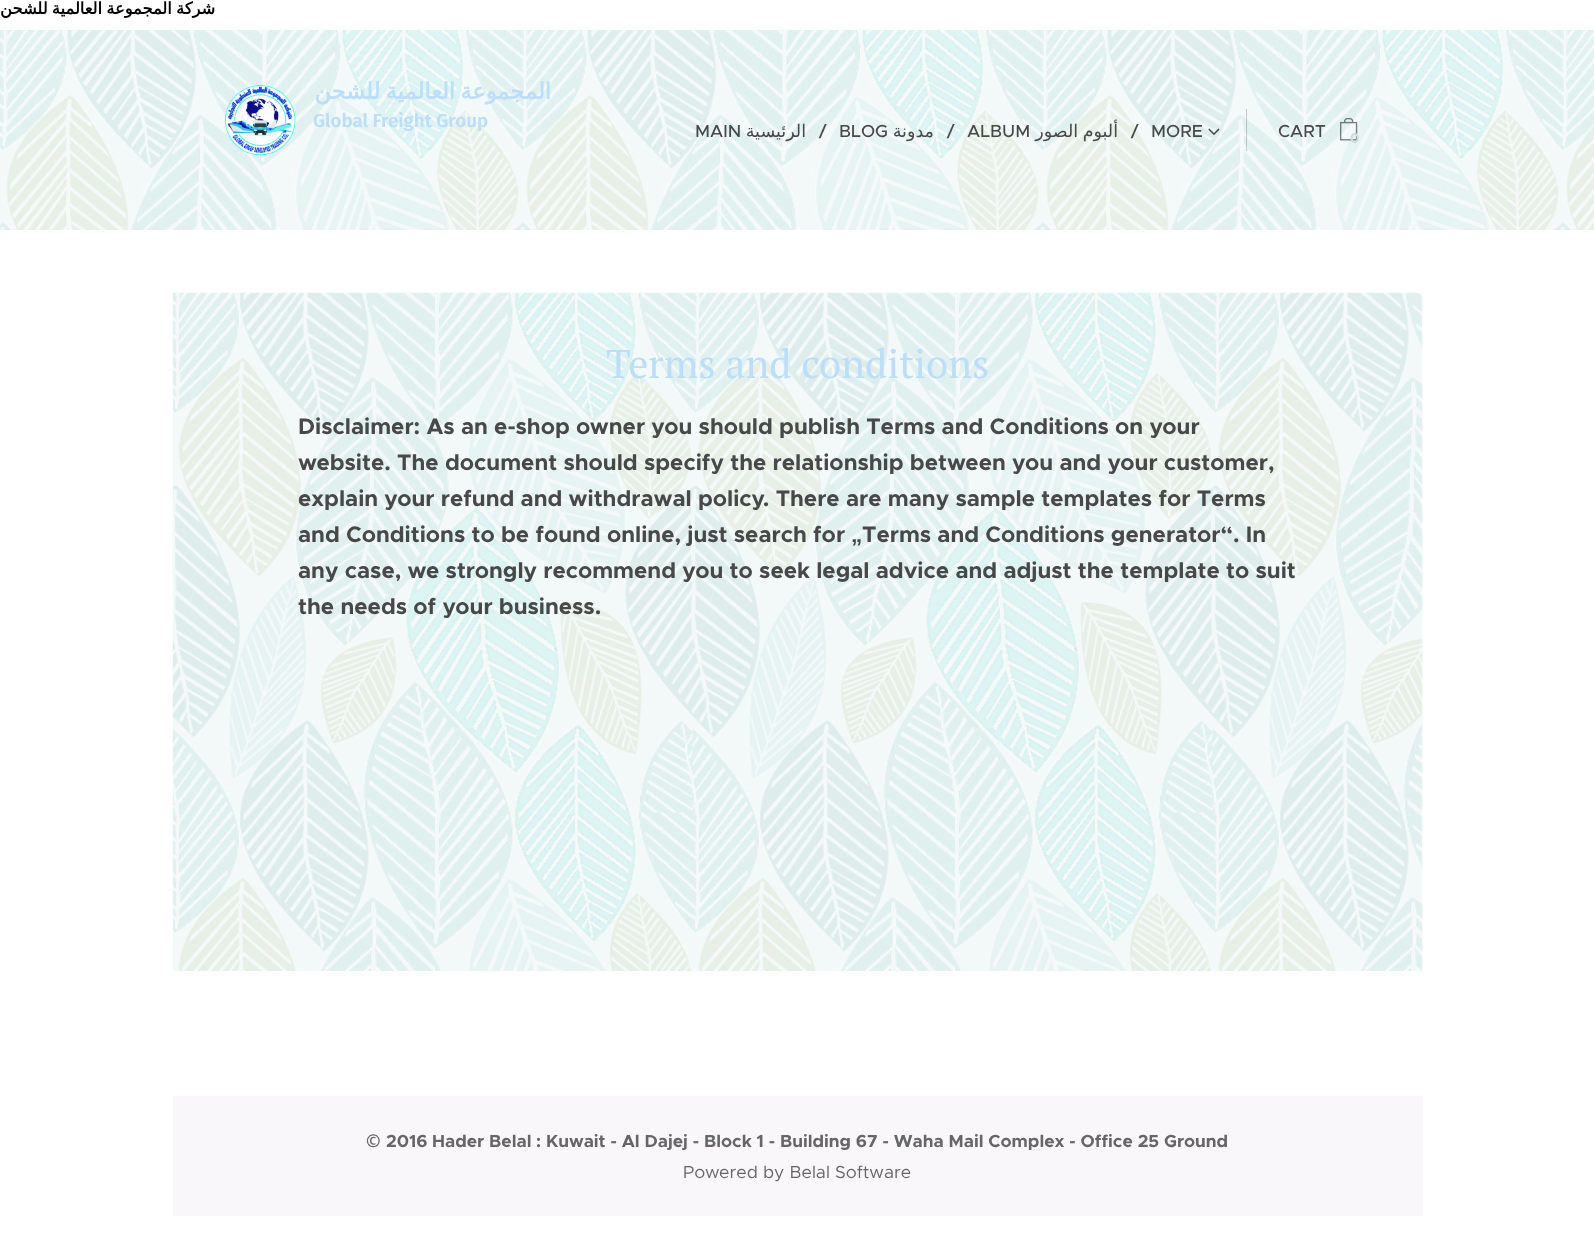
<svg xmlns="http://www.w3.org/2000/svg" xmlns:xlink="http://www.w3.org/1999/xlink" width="1594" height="1248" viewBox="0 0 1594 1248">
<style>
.cls-1{font:bold 16.25px DejaVu Sans;direction:rtl;fill:#000000}
.cls-2{font:bold 22.5px DejaVu Sans;direction:rtl;fill:#bbdefb}
.cls-3{font:600 18.75px Fira Sans;fill:#bbdefb}
.cls-4{font:500 17.5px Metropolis;fill:#474949}
.cls-5{font:17.5px DejaVu Sans;direction:rtl;fill:#474949}
.cls-6{font:bold 14px Montserrat;fill:#d1dddb}
.cls-7{font:40px PT Serif;fill:#bbdefb}
.cls-8{font:bold 22.5px Metropolis;fill:#474949}
.cls-9{font:bold 22.5px Liberation Sans;fill:#474949}
.cls-10{font:bold 17.5px Noto Sans;fill:#666666}
.cls-11{font:bold 17.5px Metropolis;fill:#666666}
.cls-12{font:17.5px Metropolis;fill:#666666}
</style>
<rect width="100%" height="100%" fill="#ffffff"/>
<image xlink:href="image0.png" x="0" y="30" width="1594" height="200"/>
<image xlink:href="image1.png" x="224" y="85" width="72" height="71"/>
<image xlink:href="image2.png" x="1208" y="128" width="12" height="7"/>
<rect fill="#000000" fill-opacity="0.2" x="1246" y="109" width="1" height="42"/>
<image xlink:href="image3.png" x="1340" y="118" width="18" height="23"/>
<image xlink:href="image4.png" x="172" y="292" width="1251" height="679"/>
<rect fill="#f9f7fa" x="173" y="1096" width="1250" height="120"/>
<text class="cls-1" x="215" y="14" word-spacing="-1">شركة المجموعة العالمية للشحن</text>
<text class="cls-2" x="551" y="99" word-spacing="-2">المجموعة العالمية للشحن</text>
<text class="cls-3" x="313" y="127">Global Freight Group</text>
<text class="cls-4" x="695" y="137">MAIN</text>
<text class="cls-5" x="806" y="137">الرئيسية</text>
<text class="cls-4" x="819" y="137">/</text>
<text class="cls-4" x="839" y="137">BLOG</text>
<text class="cls-5" x="934" y="137">مدونة</text>
<text class="cls-4" x="947" y="137">/</text>
<text class="cls-4" x="967" y="137">ALBUM</text>
<text class="cls-5" x="1118" y="137" word-spacing="-1">ألبوم الصور</text>
<text class="cls-4" x="1131" y="137">/</text>
<text class="cls-4" x="1151" y="137">MORE</text>
<text class="cls-4" x="1278" y="137">CART</text>
<text class="cls-6" x="1350" y="143">0</text>
<text class="cls-7" x="606" y="378">Terms and conditions</text>
<text class="cls-8"><tspan x="298" y="434">Disclaimer: As an e-shop owner you should publish Terms and Conditions on your</tspan><tspan x="298" y="470">website. The document should specify the relationship between you and your customer,</tspan><tspan x="298" y="506">explain your refund and withdrawal policy. There are many sample templates for Terms</tspan><tspan x="298" y="542">and Conditions to be found online, just search for</tspan></text>
<text class="cls-9" x="851" y="542">„</text>
<text class="cls-8" x="862" y="542">Terms and Conditions generator“. In</text>
<text class="cls-8"><tspan x="298" y="578">any case, we strongly recommend you to seek legal advice and adjust the template to suit</tspan><tspan x="298" y="614">the needs of your business.</tspan></text>
<text class="cls-10" x="366" y="1147">©</text>
<text class="cls-11" x="386" y="1147">2016</text>
<text class="cls-11" x="432" y="1147">Hader Belal</text>
<text class="cls-11" x="536" y="1147">: Kuwait - Al Dajej - Block 1 - Building 67 - Waha Mail Complex - Office 25 Ground</text>
<text class="cls-12" x="683" y="1178">Powered by Belal Software</text>
</svg>
